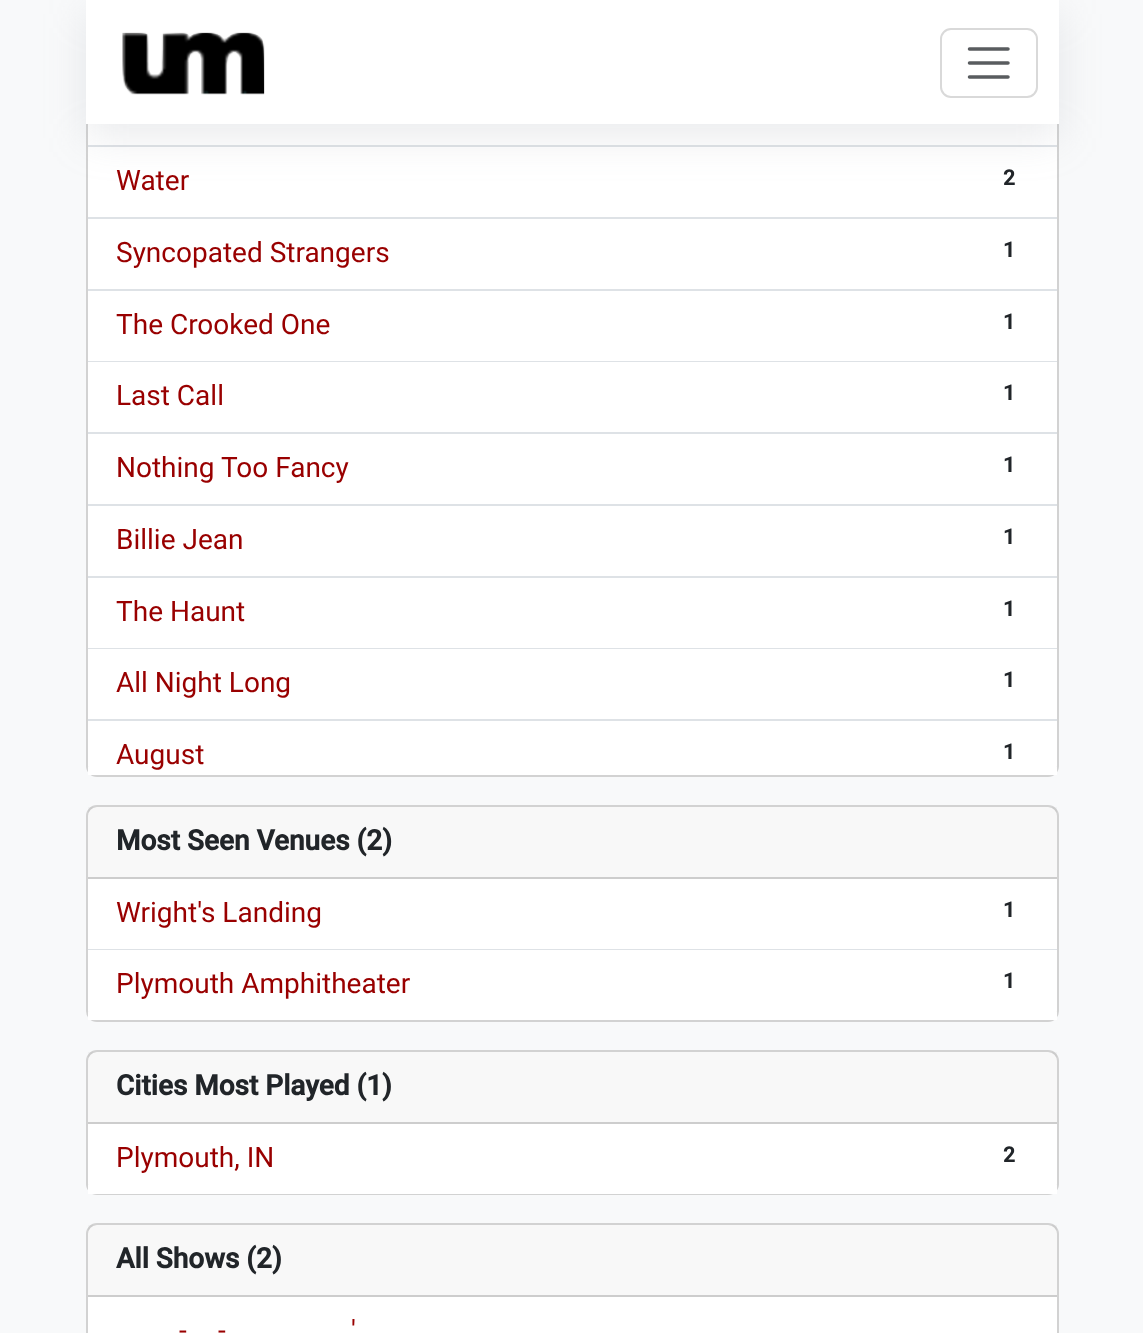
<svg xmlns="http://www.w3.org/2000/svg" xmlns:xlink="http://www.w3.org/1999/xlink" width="1143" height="1333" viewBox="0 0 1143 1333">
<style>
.cls-1{font:28px Roboto;fill:#990000}
.cls-2{font:bold 21px Roboto;fill:#212529}
.cls-3{font:bold 28px Roboto;fill:#212529}
</style>
<rect width="100%" height="100%" fill="#f8f9fa"/>
<rect fill="#ffffff" stroke="#d2d2d2" stroke-width="2" x="87" y="3" width="971" height="773" rx="10"/>
<rect fill="#dee2e6" x="88" y="145" width="969" height="2"/>
<rect fill="#959da5" fill-opacity="0.2" filter="blur(21px)" x="86" y="14" width="973" height="124"/>
<rect fill="#ffffff" x="86" y="0" width="973" height="124"/>
<image xlink:href="image0.png" x="122" y="32" width="143" height="63"/>
<rect fill="none" stroke="#d9d9d9" stroke-width="2" x="941" y="29" width="96" height="68" rx="10"/>
<path fill="none" stroke="#595c5f" stroke-width="3.5" stroke-linecap="round" d="M969.5 49H1008M969.5 63H1008M969.5 77H1008"/>
<rect fill="#dee2e6" x="88" y="217" width="969" height="2"/>
<rect fill="#dee2e6" x="88" y="289" width="969" height="2"/>
<rect fill="#dee2e6" x="88" y="361" width="969" height="1"/>
<rect fill="#dee2e6" x="88" y="432" width="969" height="2"/>
<rect fill="#dee2e6" x="88" y="504" width="969" height="2"/>
<rect fill="#dee2e6" x="88" y="576" width="969" height="2"/>
<rect fill="#dee2e6" x="88" y="648" width="969" height="1"/>
<rect fill="#dee2e6" x="88" y="719" width="969" height="2"/>
<rect fill="#ffffff" x="88" y="767" width="969" height="8"/>
<rect fill="#ffffff" stroke="#d2d2d2" stroke-width="2" x="87" y="806" width="971" height="215" rx="10"/>
<rect fill="#212529" fill-opacity="0.03" x="88" y="807" width="969" height="70"/>
<rect fill="#cdcdcd" x="88" y="877" width="969" height="2"/>
<rect fill="#dee2e6" x="88" y="949" width="969" height="1"/>
<rect fill="#ffffff" x="88" y="1012" width="969" height="8"/>
<rect fill="#ffffff" stroke="#d2d2d2" stroke-width="2" x="87" y="1051" width="971" height="143" rx="10"/>
<rect fill="#212529" fill-opacity="0.03" x="88" y="1052" width="969" height="70"/>
<rect fill="#cdcdcd" x="88" y="1122" width="969" height="2"/>
<rect fill="#ffffff" x="88" y="1185" width="969" height="9"/>
<rect fill="#ffffff" stroke="#d2d2d2" stroke-width="2" x="87" y="1224" width="971" height="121" rx="10"/>
<rect fill="#212529" fill-opacity="0.03" x="88" y="1225" width="969" height="70"/>
<rect fill="#cdcdcd" x="88" y="1295" width="969" height="2"/>
<text class="cls-1" x="116" y="190">Water</text>
<text class="cls-2" x="1003" y="185">2</text>
<text class="cls-1" x="116" y="262">Syncopated Strangers</text>
<text class="cls-2" x="1003" y="257">1</text>
<text class="cls-1" x="116" y="334">The Crooked One</text>
<text class="cls-2" x="1003" y="329">1</text>
<text class="cls-1" x="116" y="405">Last Call</text>
<text class="cls-2" x="1003" y="400">1</text>
<text class="cls-1" x="116" y="477">Nothing Too Fancy</text>
<text class="cls-2" x="1003" y="472">1</text>
<text class="cls-1" x="116" y="549">Billie Jean</text>
<text class="cls-2" x="1003" y="544">1</text>
<text class="cls-1" x="116" y="621">The Haunt</text>
<text class="cls-2" x="1003" y="616">1</text>
<text class="cls-1" x="116" y="692">All Night Long</text>
<text class="cls-2" x="1003" y="687">1</text>
<text class="cls-1" x="116" y="764">August</text>
<text class="cls-2" x="1003" y="759">1</text>
<text class="cls-3" x="116" y="850">Most Seen Venues (2)</text>
<text class="cls-1" x="116" y="922">Wright's Landing</text>
<text class="cls-2" x="1003" y="917">1</text>
<text class="cls-1" x="116" y="993">Plymouth Amphitheater</text>
<text class="cls-2" x="1003" y="988">1</text>
<text class="cls-3" x="116" y="1095">Cities Most Played (1)</text>
<text class="cls-1" x="116" y="1167">Plymouth, IN</text>
<text class="cls-2" x="1003" y="1162">2</text>
<text class="cls-3" x="116" y="1268">All Shows (2)</text>
<text class="cls-1" x="351" y="1340">'</text>
<text class="cls-1" x="179" y="1340">-</text>
<text class="cls-1" x="218" y="1340">-</text>
</svg>
